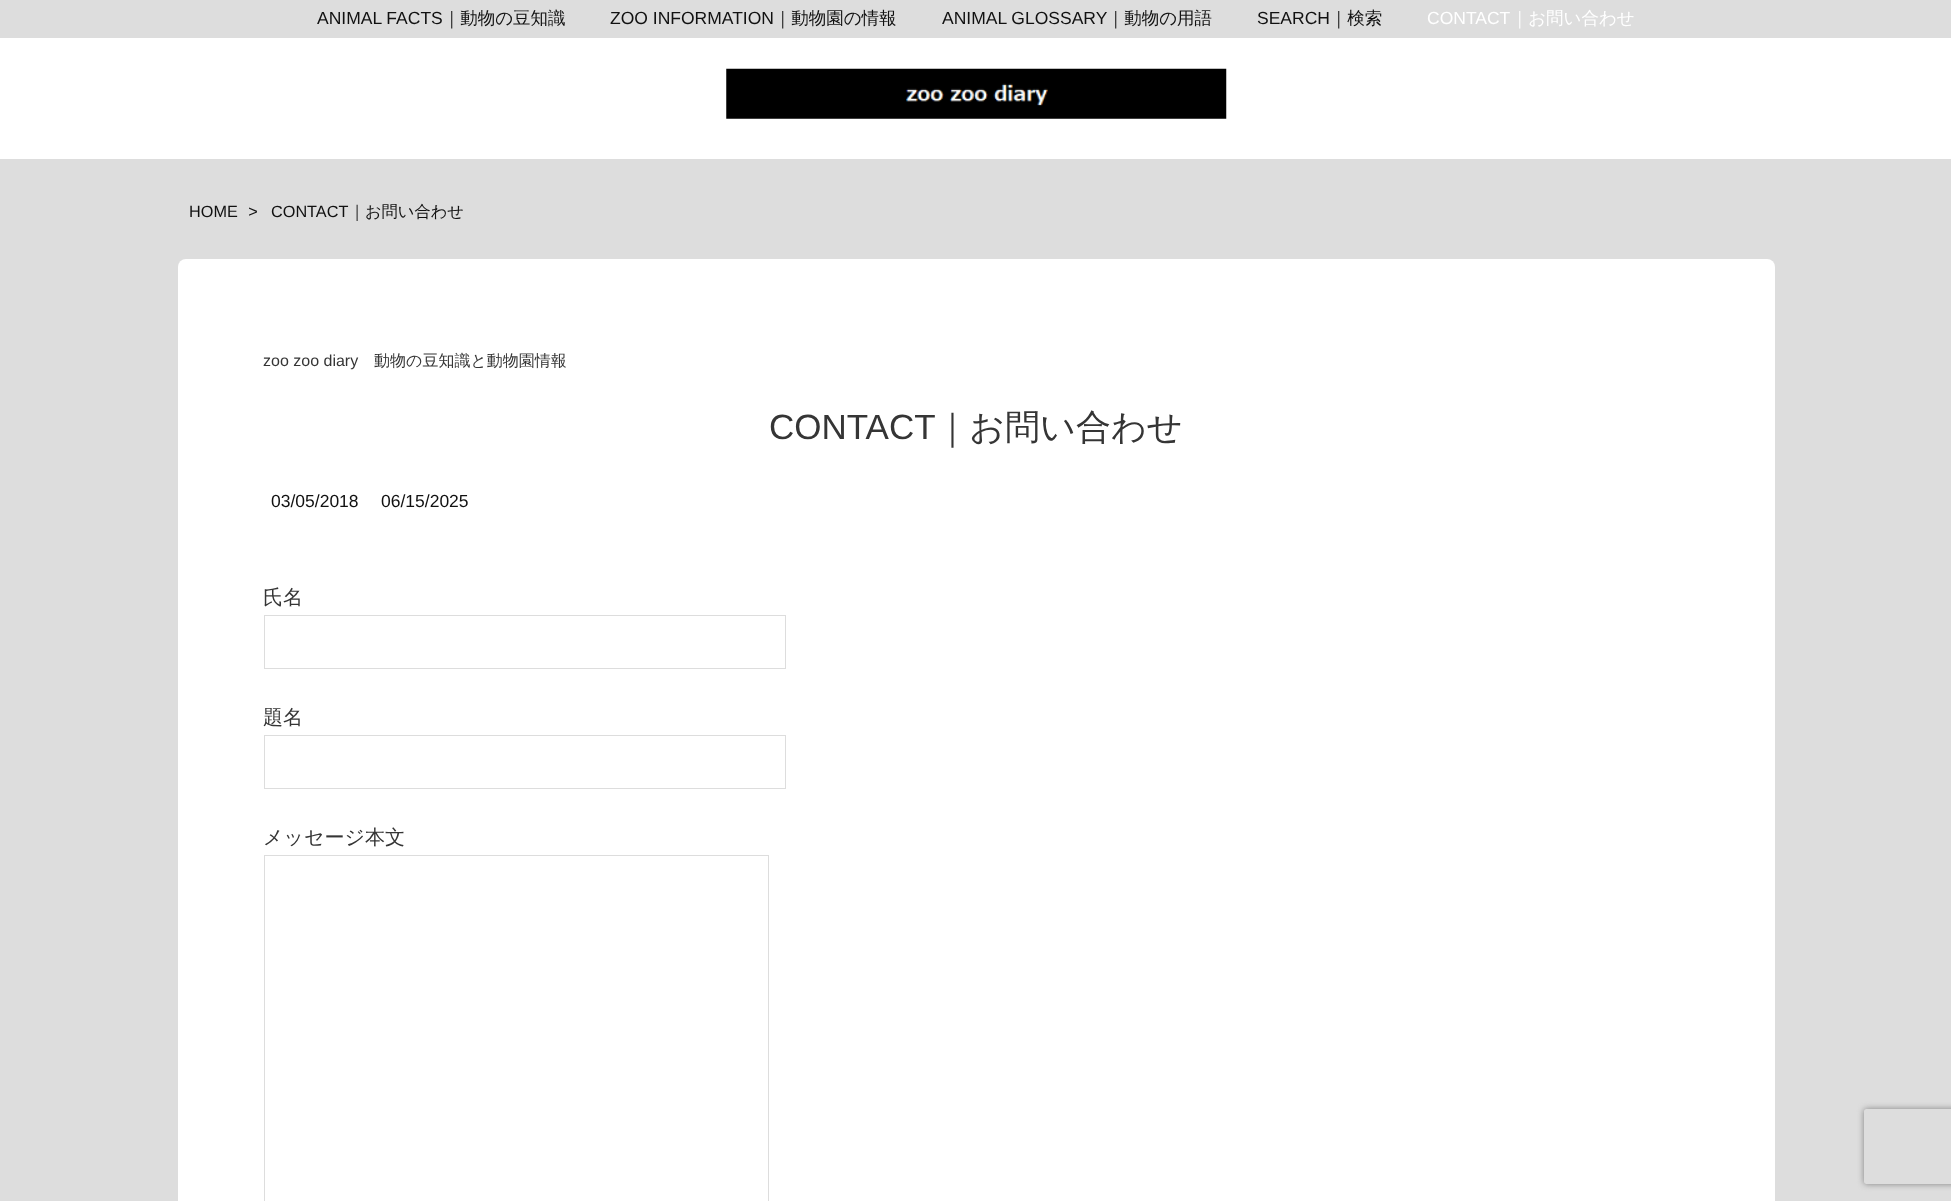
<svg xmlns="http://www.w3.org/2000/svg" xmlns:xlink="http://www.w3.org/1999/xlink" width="1951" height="1201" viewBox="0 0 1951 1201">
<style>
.cls-1{font:17.5px Liberation Sans;fill:#111111}
.cls-2{font:500 17.5px WenQuanYi Zen Hei;fill:#111111}
.cls-3{font:17.5px Liberation Sans;fill:#ffffff}
.cls-4{font:500 17.5px WenQuanYi Zen Hei;fill:#ffffff}
.cls-5{font:16.25px Liberation Sans;fill:#111111}
.cls-6{font:italic 16.25px Liberation Sans;fill:#111111}
.cls-7{font:500 16.25px WenQuanYi Zen Hei;fill:#111111}
.cls-8{font:16px Liberation Sans;fill:#353535}
.cls-9{font:500 16px WenQuanYi Zen Hei;fill:#353535}
.cls-10{font:35px Liberation Sans;fill:#353535}
.cls-11{font:500 35px WenQuanYi Zen Hei;fill:#353535}
.cls-12{font:500 20px WenQuanYi Zen Hei;fill:#353535}
</style>
<defs>
<clipPath id="clip1"><path d="M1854 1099H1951V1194H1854ZM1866.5 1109H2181.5C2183 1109 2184 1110 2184 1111.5V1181.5C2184 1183 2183 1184 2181.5 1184H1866.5C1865 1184 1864 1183 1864 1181.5V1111.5C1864 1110 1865 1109 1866.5 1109Z" clip-rule="evenodd"/></clipPath>
</defs>
<rect width="100%" height="100%" fill="#dddddd"/>
<rect fill="#ffffff" x="0" y="38" width="1951" height="121"/>
<image xlink:href="image0.png" x="726" y="68" width="501" height="51"/>
<rect fill="#ffffff" x="178" y="259" width="1597" height="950" rx="8"/>
<rect fill="none" stroke="#dddddd" x="264.5" y="615.5" width="521" height="53"/>
<rect fill="none" stroke="#dddddd" x="264.5" y="735.5" width="521" height="53"/>
<rect fill="none" stroke="#dddddd" x="264.5" y="855.5" width="504" height="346"/>
<g clip-path="url(#clip1)">
<rect fill="#808080" filter="blur(3px)" x="1864" y="1109" width="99" height="75" rx="2.5"/>
</g>
<text class="cls-1" x="317" y="24">ANIMAL FACTS</text>
<text class="cls-2" x="443" y="24">｜動物の豆知識</text>
<text class="cls-1" x="610" y="24">ZOO INFORMATION</text>
<text class="cls-2" x="774" y="24">｜動物園の情報</text>
<text class="cls-1" x="942" y="24">ANIMAL GLOSSARY</text>
<text class="cls-2" x="1107" y="24">｜動物の用語</text>
<text class="cls-1" x="1257" y="24">SEARCH</text>
<text class="cls-2" x="1330" y="24">｜検索</text>
<text class="cls-3" x="1427" y="24">CONTACT</text>
<text class="cls-4" x="1511" y="24">｜お問い合わせ</text>
<text class="cls-5" x="189" y="217">HOME</text>
<text class="cls-6" x="248" y="217">&gt;</text>
<text class="cls-5" x="271" y="217">CONTACT</text>
<text class="cls-7" x="349" y="217">｜お問い合わせ</text>
<text class="cls-8" x="263" y="366">zoo zoo diary</text>
<text class="cls-9" x="374" y="366">動物の豆知識と動物園情報</text>
<text class="cls-10" x="769" y="439">CONTACT</text>
<text class="cls-11" x="935" y="439">｜お問い合わせ</text>
<text class="cls-1" x="271" y="507">03/05/2018</text>
<text class="cls-1" x="381" y="507">06/15/2025</text>
<text class="cls-12" x="263" y="604">氏名</text>
<text class="cls-12" x="263" y="724">題名</text>
<text class="cls-12" x="263" y="844">メッセージ本文</text>
</svg>
